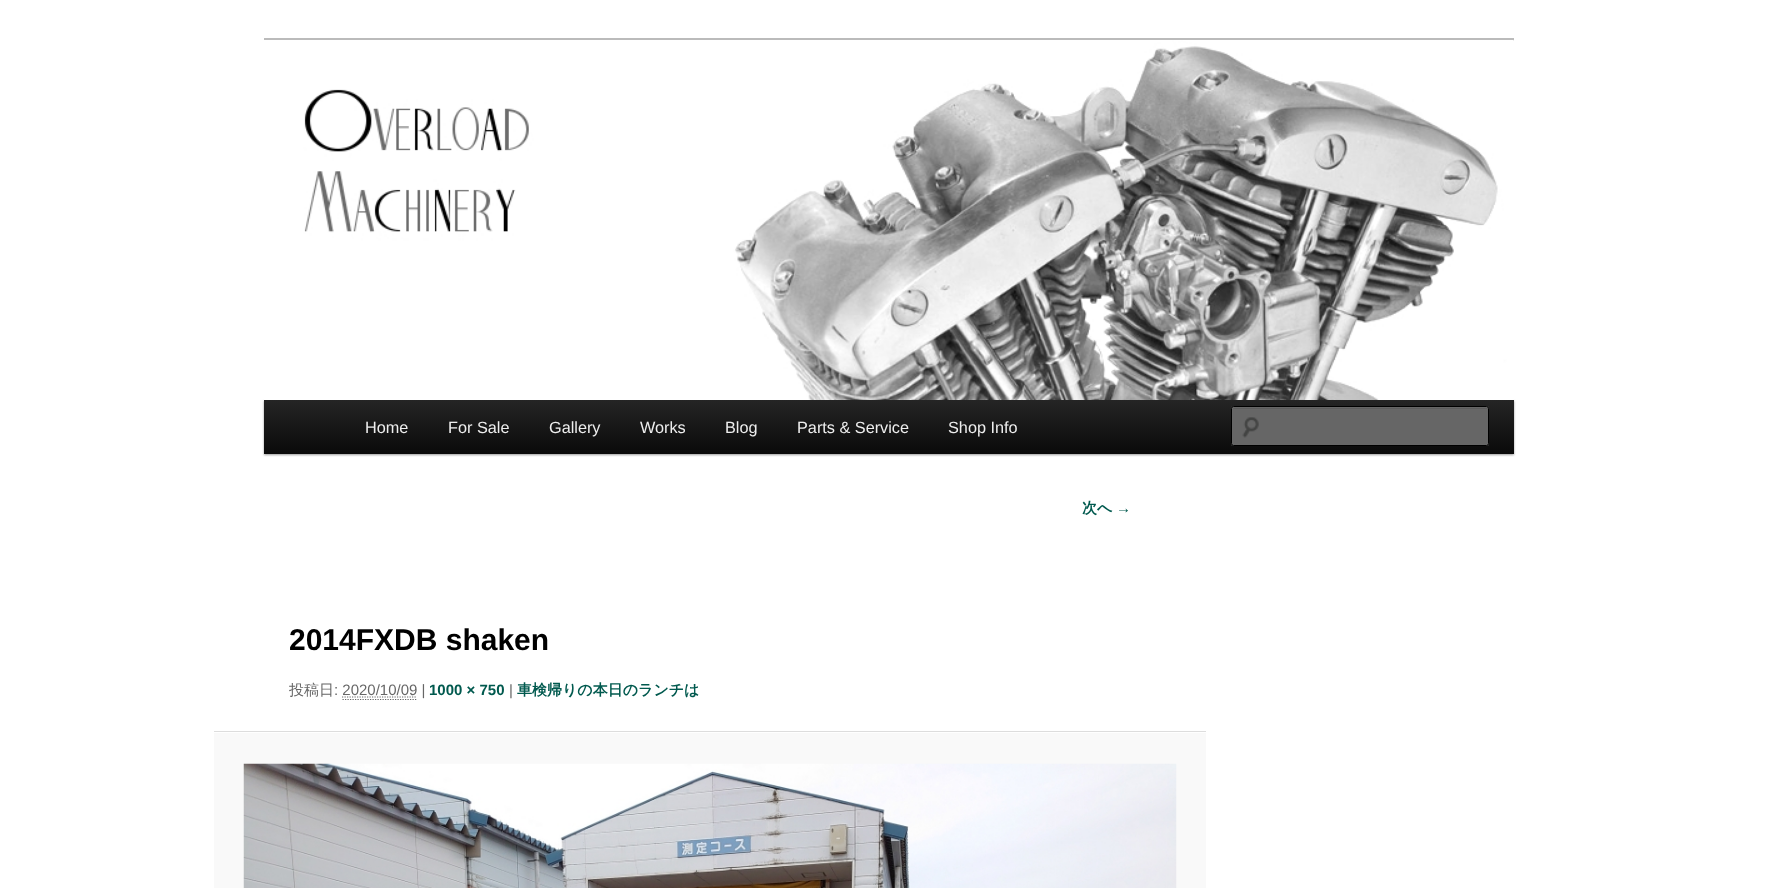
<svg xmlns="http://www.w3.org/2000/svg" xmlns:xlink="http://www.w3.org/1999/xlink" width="1777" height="888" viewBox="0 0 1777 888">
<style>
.cls-1{font:16.25px Liberation Sans;fill:#eeeeee}
.cls-2{font:bold 15px WenQuanYi Zen Hei;fill:#00594e}
.cls-3{font:bold 15px Liberation Sans;fill:#00594e}
.cls-4{font:bold 30px Liberation Sans;fill:#000000}
.cls-5{font:500 15px WenQuanYi Zen Hei;fill:#666666}
.cls-6{font:15px Liberation Sans;fill:#666666}
</style>
<defs>
<linearGradient id="g1" gradientUnits="userSpaceOnUse" x1="889" y1="400" x2="889" y2="454"><stop offset="0" stop-color="#252525"/><stop offset="1" stop-color="#0a0a0a"/></linearGradient>
</defs>
<rect width="100%" height="100%" fill="#ffffff"/>
<rect fill="#bbbbbb" x="264" y="38" width="1250" height="3"/>
<rect fill="#000000" fill-opacity="0.4" filter="blur(1px)" x="264" y="401" width="1250" height="54"/>
<image xlink:href="image0.png" x="264" y="40" width="1250" height="360"/>
<rect fill="url(#g1)" x="264" y="400" width="1250" height="54"/>
<rect fill="#666666" x="1231" y="406" width="258" height="40" rx="2.5"/>
<image xlink:href="image1.png" x="1242" y="417" width="17" height="21"/>
<path fill="#5c5c5c" d="M1234 409H1486C1487 409 1488 409 1488 410V408H1234L1233 409Z"/>
<rect fill="none" stroke="#000000" x="1231.5" y="406.5" width="257" height="39" rx="2"/>
<path fill="none" stroke="#666666" stroke-width="1.2" stroke-dasharray="1.25 1.25" d="M342 697H417"/>
<path fill="none" stroke="#666666" stroke-width="1.2" stroke-dasharray="1.25 1.25" d="M342.5 699.5H417.5"/>
<rect fill="#f9f9f9" x="214" y="733" width="992" height="155"/>
<rect fill="#dddddd" x="214" y="731" width="992" height="1"/>
<image xlink:href="image2.png" x="243" y="763" width="934" height="125"/>
<text class="cls-1" x="365" y="433">Home</text>
<text class="cls-1" x="448" y="433">For Sale</text>
<text class="cls-1" x="549" y="433">Gallery</text>
<text class="cls-1" x="640" y="433">Works</text>
<text class="cls-1" x="725" y="433">Blog</text>
<text class="cls-1" x="797" y="433">Parts &amp; Service</text>
<text class="cls-1" x="948" y="433">Shop Info</text>
<text class="cls-2" x="1082" y="513">次へ</text>
<text class="cls-3" x="1116" y="513">→</text>
<text class="cls-4" x="289" y="650">2014FXDB shaken</text>
<text class="cls-5" x="289" y="695">投稿日</text>
<text class="cls-6" x="334" y="695">: 2020/10/09 |</text>
<text class="cls-3" x="429" y="695">1000 × 750</text>
<text class="cls-6" x="509" y="695">|</text>
<text class="cls-2" x="517" y="695">車検帰りの本日のランチは</text>
</svg>
